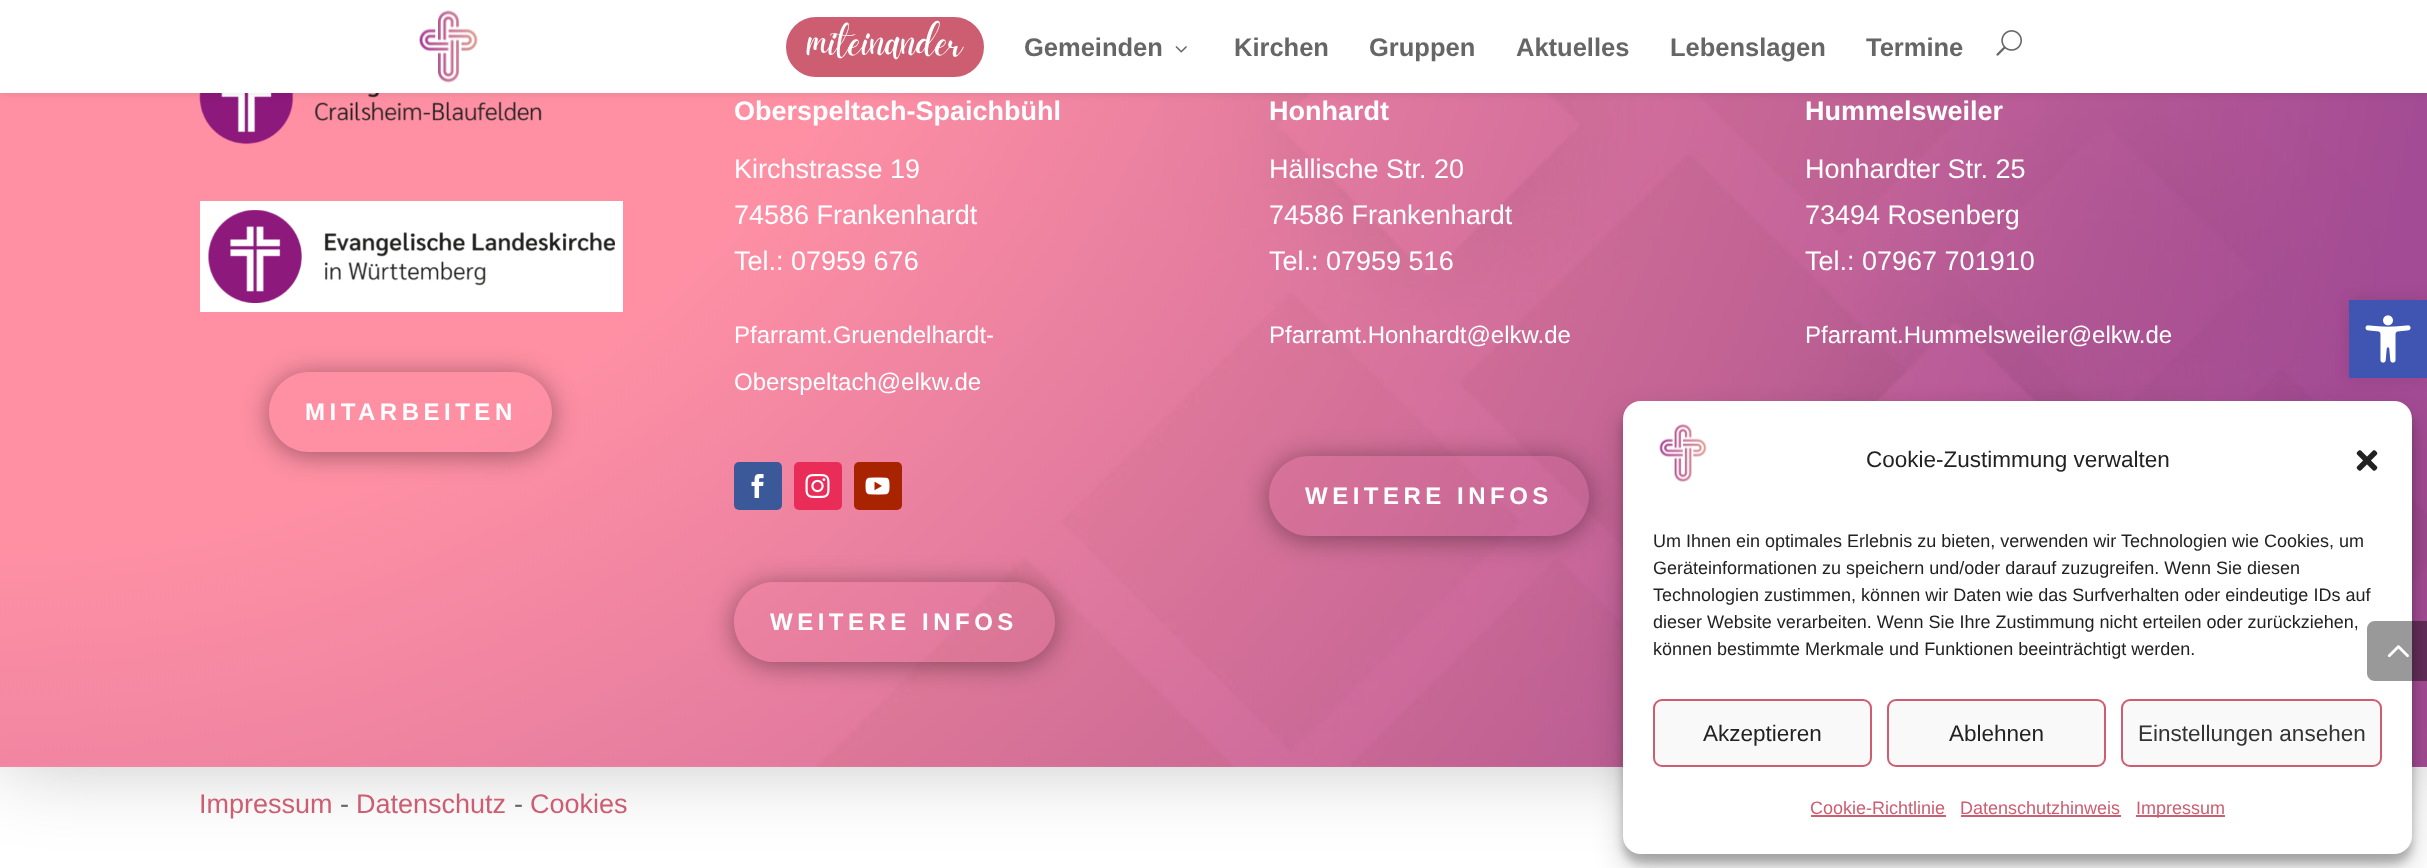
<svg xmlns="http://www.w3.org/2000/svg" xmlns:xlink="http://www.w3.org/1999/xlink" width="2427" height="868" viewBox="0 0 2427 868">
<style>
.cls-1{font:45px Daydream;fill:#ffffff}
.cls-2{font:bold 25.5px Liberation Sans;fill:#666666}
.cls-3{font:bold 27px Liberation Sans;fill:#ffffff}
.cls-4{font:27px Liberation Sans;fill:#ffffff}
.cls-5{font:24px Liberation Sans;fill:#ffffff}
.cls-6{font:bold 24px Liberation Sans;letter-spacing:4.5px;fill:#ffffff}
.cls-7{font:27px Liberation Sans;fill:#cd5e72}
.cls-8{font:27px Liberation Sans;fill:#666666}
.cls-9{font:22.5px Liberation Sans;fill:#222222}
.cls-10{font:18px Liberation Sans;fill:#222222}
.cls-11{font:22.5px Liberation Sans;fill:#333333}
.cls-12{font:18px Liberation Sans;fill:#cd5e72}
</style>
<defs>
<clipPath id="clip1"><path d="M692 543H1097V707H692ZM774 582H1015C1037 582 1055 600 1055 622C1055 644 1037 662 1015 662H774C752 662 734 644 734 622C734 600 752 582 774 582Z" clip-rule="evenodd"/></clipPath>
<clipPath id="clip2"><path d="M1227 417H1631V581H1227ZM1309 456H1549C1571 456 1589 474 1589 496C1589 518 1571 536 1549 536H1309C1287 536 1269 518 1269 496C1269 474 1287 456 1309 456Z" clip-rule="evenodd"/></clipPath>
<clipPath id="clip3"><path d="M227 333H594V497H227ZM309 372H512C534 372 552 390 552 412C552 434 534 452 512 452H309C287 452 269 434 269 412C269 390 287 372 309 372Z" clip-rule="evenodd"/></clipPath>
</defs>
<rect width="100%" height="100%" fill="#ffffff"/>
<rect fill="#000000" fill-opacity="0.3" filter="blur(45px)" x="0" y="-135" width="2427" height="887"/>
<image xlink:href="image3.png" x="0" y="93" width="2427" height="674"/>
<image xlink:href="image7.png" x="199" y="93" width="343" height="52"/>
<rect fill="#000000" fill-opacity="0.1" filter="blur(5px)" x="0" y="0" width="2427" height="93"/>
<rect fill="#ffffff" x="0" y="0" width="2427" height="93"/>
<image xlink:href="image0.png" x="419" y="10" width="59" height="73"/>
<rect fill="#cd5e72" stroke="#cd5e72" stroke-width="6" x="789" y="20" width="192" height="54" rx="27"/>
<image xlink:href="image1.png" x="1175" y="46" width="12" height="7"/>
<image xlink:href="image2.png" x="1996" y="30" width="26" height="26"/>
<rect fill="#3b5998" x="734" y="462" width="48" height="48" rx="5"/>
<image xlink:href="image4.png" x="751" y="474" width="13" height="24"/>
<rect fill="#ea2c59" x="794" y="462" width="48" height="48" rx="5"/>
<image xlink:href="image5.png" x="805" y="474" width="25" height="24"/>
<rect fill="#a82400" x="854" y="462" width="48" height="48" rx="5"/>
<image xlink:href="image6.png" x="865" y="477" width="25" height="18"/>
<g clip-path="url(#clip1)">
<rect fill="#000000" fill-opacity="0.4" filter="blur(13.5px)" x="734" y="585" width="321" height="80" rx="40"/>
</g>
<g clip-path="url(#clip2)">
<rect fill="#000000" fill-opacity="0.4" filter="blur(13.5px)" x="1269" y="459" width="320" height="80" rx="40"/>
</g>
<rect fill="#000000" fill-opacity="0.4" filter="blur(13.5px)" x="1805" y="422" width="319" height="79" rx="39.5"/>
<rect fill="#ffffff" x="200" y="201" width="423" height="111"/>
<image xlink:href="image8.png" x="208" y="210" width="407" height="93"/>
<g clip-path="url(#clip3)">
<rect fill="#000000" fill-opacity="0.4" filter="blur(13.5px)" x="269" y="375" width="283" height="80" rx="40"/>
</g>
<rect fill="#000000" fill-opacity="0.1" filter="blur(7.5px)" x="2349" y="300" width="78" height="78"/>
<rect fill="#4054b2" x="2349" y="300" width="78" height="78"/>
<image xlink:href="image9.png" x="2365" y="315" width="46" height="48"/>
<rect fill="#000000" fill-opacity="0.23" filter="blur(4.5px)" x="1623" y="410" width="789" height="453" rx="18"/>
<rect fill="#000000" fill-opacity="0.19" filter="blur(15px)" x="1623" y="416" width="789" height="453" rx="18"/>
<rect fill="#ffffff" x="1623" y="401" width="789" height="453" rx="18"/>
<image xlink:href="image10.png" x="1659" y="424" width="48" height="58"/>
<image xlink:href="image11.png" x="2356" y="450" width="22" height="21"/>
<rect fill="#f9f9f9" stroke="#cd5e72" stroke-width="2" x="1654" y="700" width="217" height="66" rx="8"/>
<rect fill="#f9f9f9" stroke="#cd5e72" stroke-width="2" x="1888" y="700" width="217" height="66" rx="8"/>
<rect fill="#f9f9f9" stroke="#cd5e72" stroke-width="2" x="2122" y="700" width="259" height="66" rx="8"/>
<rect fill="#cd5e72" x="1811" y="815" width="135" height="2"/>
<rect fill="#cd5e72" x="1961" y="815" width="160" height="2"/>
<rect fill="#cd5e72" x="2136" y="815" width="89" height="2"/>
<path fill="#000000" fill-opacity="0.4" d="M2375 621H2427V681H2375C2370.5 681 2367 677.5 2367 673V629C2367 624.5 2370.5 621 2375 621Z"/>
<image xlink:href="image12.png" x="2387" y="645" width="22" height="13"/>
<text class="cls-1" x="807" y="56">miteinander</text>
<text class="cls-2" x="1024" y="56">Gemeinden</text>
<text class="cls-2" x="1234" y="56">Kirchen</text>
<text class="cls-2" x="1369" y="56">Gruppen</text>
<text class="cls-2" x="1516" y="56">Aktuelles</text>
<text class="cls-2" x="1670" y="56">Lebenslagen</text>
<text class="cls-2" x="1866" y="56">Termine</text>
<text class="cls-3" x="734" y="120">Oberspeltach-Spaichbühl</text>
<text class="cls-4"><tspan x="734" y="178">Kirchstrasse 19</tspan><tspan x="734" y="224">74586 Frankenhardt</tspan><tspan x="734" y="270">Tel.: 07959 676</tspan></text>
<text class="cls-5"><tspan x="734" y="343">Pfarramt.Gruendelhardt-</tspan><tspan x="734" y="390">Oberspeltach@elkw.de</tspan></text>
<text class="cls-6" x="770" y="630">WEITERE INFOS</text>
<text class="cls-3" x="1269" y="120">Honhardt</text>
<text class="cls-4"><tspan x="1269" y="178">Hällische Str. 20</tspan><tspan x="1269" y="224">74586 Frankenhardt</tspan><tspan x="1269" y="270">Tel.: 07959 516</tspan></text>
<text class="cls-5" x="1269" y="343">Pfarramt.Honhardt@elkw.de</text>
<text class="cls-6" x="1305" y="504">WEITERE INFOS</text>
<text class="cls-3" x="1805" y="120">Hummelsweiler</text>
<text class="cls-4"><tspan x="1805" y="178">Honhardter Str. 25</tspan><tspan x="1805" y="224">73494 Rosenberg</tspan><tspan x="1805" y="270">Tel.: 07967 701910</tspan></text>
<text class="cls-5" x="1805" y="343">Pfarramt.Hummelsweiler@elkw.de</text>
<text class="cls-6" x="305" y="420">MITARBEITEN</text>
<text class="cls-7" x="199" y="813">Impressum</text>
<text class="cls-8" x="340" y="813">-</text>
<text class="cls-7" x="356" y="813">Datenschutz</text>
<text class="cls-8" x="514" y="813">-</text>
<text class="cls-7" x="530" y="813">Cookies</text>
<text class="cls-9" x="1866" y="467">Cookie-Zustimmung verwalten</text>
<text class="cls-10"><tspan x="1653" y="547">Um Ihnen ein optimales Erlebnis zu bieten, verwenden wir Technologien wie Cookies, um</tspan><tspan x="1653" y="574">Geräteinformationen zu speichern und/oder darauf zuzugreifen. Wenn Sie diesen</tspan><tspan x="1653" y="601">Technologien zustimmen, können wir Daten wie das Surfverhalten oder eindeutige IDs auf</tspan><tspan x="1653" y="628">dieser Website verarbeiten. Wenn Sie Ihre Zustimmung nicht erteilen oder zurückziehen,</tspan><tspan x="1653" y="655">können bestimmte Merkmale und Funktionen beeinträchtigt werden.</tspan></text>
<text class="cls-9" x="1703" y="741">Akzeptieren</text>
<text class="cls-9" x="1949" y="741">Ablehnen</text>
<text class="cls-11" x="2138" y="741">Einstellungen ansehen</text>
<text class="cls-12" x="1810" y="814">Cookie-Richtlinie</text>
<text class="cls-12" x="1960" y="814">Datenschutzhinweis</text>
<text class="cls-12" x="2136" y="814">Impressum</text>
</svg>
